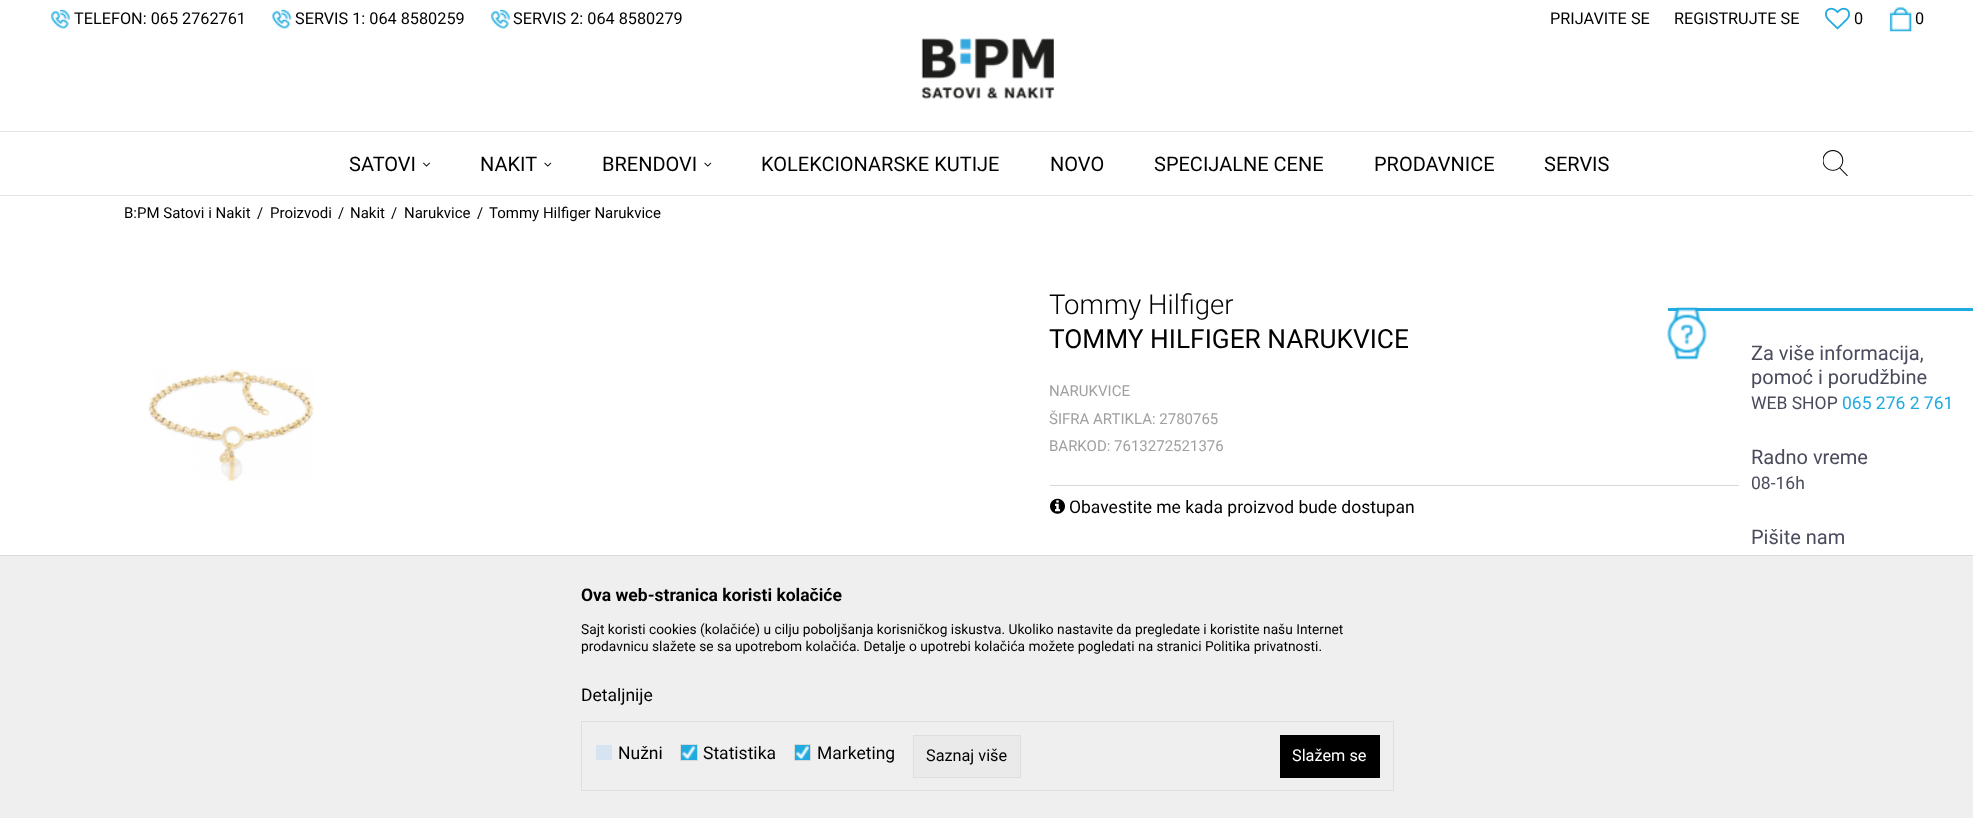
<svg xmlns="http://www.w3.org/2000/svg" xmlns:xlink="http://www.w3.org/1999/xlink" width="1973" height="818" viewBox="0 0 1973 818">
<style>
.cls-1{font:16.25px Roboto;fill:#000000}
.cls-2{font:20px Roboto;fill:#000000}
.cls-3{font:15px Roboto;fill:#000000}
.cls-4{font:300 27.5px Roboto;fill:#000000}
.cls-5{font:26.25px Roboto;fill:#000000}
.cls-6{font:15px Roboto;fill:#a0a0a0}
.cls-7{font:17.5px Roboto;fill:#000000}
.cls-8{font:20px Roboto;fill:#4a4b5c}
.cls-9{font:17.5px Roboto;fill:#4a4b5c}
.cls-10{font:17.5px Roboto;fill:#1faae0}
.cls-11{font:bold 17.5px Roboto;fill:#000000}
.cls-12{font:13.75px Roboto;fill:#000000}
.cls-13{font:16.25px Roboto;fill:#ffffff}
</style>
<rect width="100%" height="100%" fill="#ffffff"/>
<image xlink:href="image0.png" x="51" y="9" width="19" height="20"/>
<image xlink:href="image1.png" x="272" y="9" width="20" height="20"/>
<image xlink:href="image2.png" x="491" y="9" width="19" height="20"/>
<image xlink:href="image3.png" x="1825" y="7" width="25" height="23"/>
<image xlink:href="image4.png" x="1889" y="7" width="23" height="25"/>
<image xlink:href="image5.png" x="921" y="38" width="133" height="61"/>
<rect fill="#e3e3e3" x="0" y="131" width="1973" height="1"/>
<rect fill="#e3e3e3" x="0" y="195" width="1973" height="1"/>
<image xlink:href="image6.png" x="423" y="162" width="7" height="5"/>
<image xlink:href="image7.png" x="544" y="162" width="8" height="5"/>
<image xlink:href="image7.png" x="704" y="162" width="8" height="5"/>
<image xlink:href="image8.png" x="1823" y="150" width="25" height="26"/>
<image xlink:href="image9.png" x="148" y="369" width="166" height="113"/>
<rect fill="#d9d9d9" x="1050" y="485" width="689" height="1"/>
<image xlink:href="image10.png" x="1050" y="498" width="15" height="16"/>
<rect fill="#1faae0" x="1668" y="308" width="305" height="3"/>
<image xlink:href="image11.png" x="1667" y="307" width="40" height="53"/>
<rect fill="none" stroke="#d9d9d9" x="-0.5" y="555.5" width="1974" height="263"/>
<rect fill="#efefef" x="0" y="556" width="1973" height="262"/>
<rect fill="none" stroke="#dedede" x="581.5" y="721.5" width="812" height="69"/>
<rect fill="#d6e3f0" x="596" y="745" width="16" height="15"/>
<rect fill="#1faae0" x="681" y="745" width="16" height="15"/>
<image xlink:href="image12.png" x="681" y="745" width="15" height="14"/>
<rect fill="none" stroke="#d9d9d9" x="680.5" y="744.5" width="17" height="16"/>
<rect fill="#1faae0" x="795" y="745" width="15" height="15"/>
<image xlink:href="image13.png" x="795" y="745" width="14" height="14"/>
<rect fill="none" stroke="#d9d9d9" x="794.5" y="744.5" width="16" height="16"/>
<rect fill="#eaeaea" stroke="#dedede" x="913.5" y="735.5" width="107" height="42"/>
<rect fill="#000000" x="1280" y="735" width="100" height="43"/>
<text class="cls-1" x="74" y="24">TELEFON: 065 2762761</text>
<text class="cls-1" x="295" y="24">SERVIS 1: 064 8580259</text>
<text class="cls-1" x="513" y="24">SERVIS 2: 064 8580279</text>
<text class="cls-1" x="1550" y="24">PRIJAVITE SE</text>
<text class="cls-1" x="1674" y="24">REGISTRUJTE SE</text>
<text class="cls-1" x="1854" y="24">0</text>
<text class="cls-1" x="1915" y="24">0</text>
<text class="cls-2" x="349" y="171">SATOVI</text>
<text class="cls-2" x="480" y="171">NAKIT</text>
<text class="cls-2" x="602" y="171">BRENDOVI</text>
<text class="cls-2" x="761" y="171">KOLEKCIONARSKE KUTIJE</text>
<text class="cls-2" x="1050" y="171">NOVO</text>
<text class="cls-2" x="1154" y="171">SPECIJALNE CENE</text>
<text class="cls-2" x="1374" y="171">PRODAVNICE</text>
<text class="cls-2" x="1544" y="171">SERVIS</text>
<text class="cls-3" x="124" y="218">B:PM Satovi i Nakit</text>
<text class="cls-3" x="257" y="218">/</text>
<text class="cls-3" x="270" y="218">Proizvodi</text>
<text class="cls-3" x="338" y="218">/</text>
<text class="cls-3" x="350" y="218">Nakit</text>
<text class="cls-3" x="391" y="218">/</text>
<text class="cls-3" x="404" y="218">Narukvice</text>
<text class="cls-3" x="477" y="218">/</text>
<text class="cls-3" x="489" y="218">Tommy Hilfiger Narukvice</text>
<text class="cls-4" x="1049" y="314">Tommy Hilfiger</text>
<text class="cls-5" x="1049" y="348">TOMMY HILFIGER NARUKVICE</text>
<text class="cls-6"><tspan x="1049" y="396">NARUKVICE</tspan><tspan x="1049" y="424">ŠIFRA ARTIKLA: 2780765</tspan><tspan x="1049" y="451">BARKOD: 7613272521376</tspan></text>
<text class="cls-7" x="1069" y="513">Obavestite me kada proizvod bude dostupan</text>
<text class="cls-8"><tspan x="1751" y="360">Za više informacija,</tspan><tspan x="1751" y="384">pomoć i porudžbine</tspan></text>
<text class="cls-9" x="1751" y="409">WEB SHOP</text>
<text class="cls-10" x="1842" y="409">065 276 2 761</text>
<text class="cls-8" x="1751" y="464">Radno vreme</text>
<text class="cls-9" x="1751" y="489">08-16h</text>
<text class="cls-8" x="1751" y="544">Pišite nam</text>
<text class="cls-11" x="581" y="601">Ova web-stranica koristi kolačiće</text>
<text class="cls-12"><tspan x="581" y="634">Sajt koristi cookies (kolačiće) u cilju poboljšanja korisničkog iskustva. Ukoliko nastavite da pregledate i koristite našu Internet</tspan><tspan x="581" y="651">prodavnicu slažete se sa upotrebom kolačića. Detalje o upotrebi kolačića možete pogledati na stranici Politika privatnosti.</tspan></text>
<text class="cls-7" x="581" y="701">Detaljnije</text>
<text class="cls-7" x="618" y="759">Nužni</text>
<text class="cls-7" x="703" y="759">Statistika</text>
<text class="cls-7" x="817" y="759">Marketing</text>
<text class="cls-1" x="926" y="761">Saznaj više</text>
<text class="cls-13" x="1292" y="761">Slažem se</text>
</svg>
